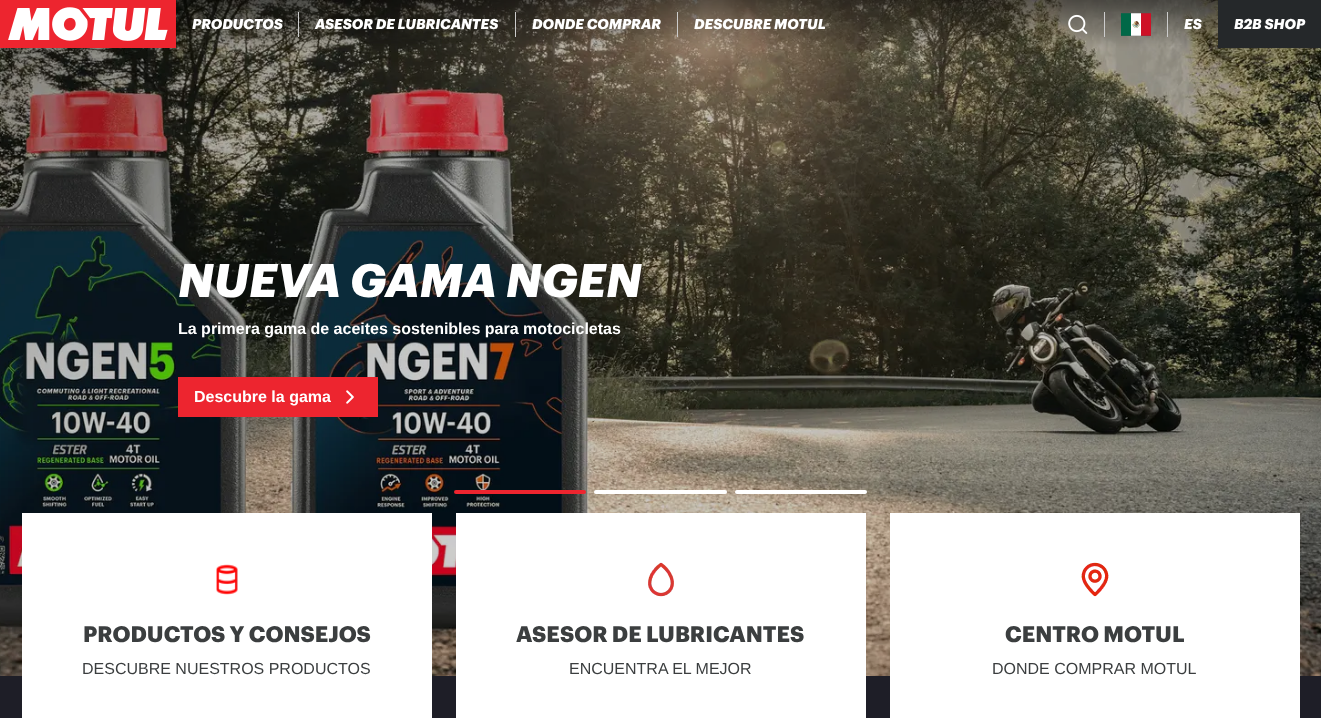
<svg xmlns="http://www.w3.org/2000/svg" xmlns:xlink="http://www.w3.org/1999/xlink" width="1321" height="718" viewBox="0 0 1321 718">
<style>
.cls-1{font:italic bold 14px Graphik;fill:#ffffff}
.cls-2{font:italic bold 46px Graphik;fill:#ffffff}
.cls-3{font:bold 16px Liberation Sans;fill:#ffffff}
.cls-4{font:bold 22px Graphik;fill:#3b3e3f}
.cls-5{font:16px Liberation Sans;fill:#3b3e3f}
</style>
<rect width="100%" height="100%" fill="#1e1e27"/>
<image xlink:href="image3.png" x="0" y="0" width="1321" height="676"/>
<rect fill="#ed252f" x="0" y="0" width="176" height="48"/>
<image xlink:href="image0.png" x="8" y="7" width="160" height="34"/>
<rect fill="#cccccc" x="298" y="12" width="1" height="25"/>
<rect fill="#cccccc" x="515" y="12" width="1" height="25"/>
<rect fill="#cccccc" x="677" y="12" width="1" height="25"/>
<image xlink:href="image1.png" x="1068" y="14" width="20" height="20"/>
<rect fill="#cccccc" x="1104" y="12" width="1" height="25"/>
<rect fill="#515355" filter="blur(0.5px)" x="1121" y="13" width="30" height="23"/>
<image xlink:href="image2.png" x="1121" y="13" width="30" height="23"/>
<rect fill="#cccccc" x="1167" y="12" width="1" height="25"/>
<rect fill="#25282a" x="1218" y="0" width="103" height="48"/>
<rect fill="#ed252f" x="178" y="377" width="200" height="40"/>
<image xlink:href="image4.png" x="346" y="390" width="8" height="14"/>
<rect fill="#ed252f" x="454" y="490" width="132" height="4" rx="2"/>
<rect fill="#ffffff" x="594" y="490" width="133" height="4" rx="2"/>
<rect fill="#ffffff" x="735" y="490" width="132" height="4" rx="2"/>
<rect fill="#ffffff" x="22" y="513" width="410" height="205"/>
<image xlink:href="image5.png" x="216" y="564" width="22" height="31"/>
<rect fill="#ffffff" x="456" y="513" width="410" height="205"/>
<image xlink:href="image6.png" x="648" y="562" width="26" height="35"/>
<rect fill="#ffffff" x="890" y="513" width="410" height="205"/>
<image xlink:href="image7.png" x="1081" y="562" width="28" height="35"/>
<text class="cls-1" x="192" y="29">PRODUCTOS</text>
<text class="cls-1" x="315" y="29">ASESOR DE LUBRICANTES</text>
<text class="cls-1" x="532" y="29">DONDE COMPRAR</text>
<text class="cls-1" x="694" y="29">DESCUBRE MOTUL</text>
<text class="cls-1" x="1184" y="29">ES</text>
<text class="cls-1" x="1234" y="29">B2B SHOP</text>
<text class="cls-2" x="178" y="297">NUEVA GAMA NGEN</text>
<text class="cls-3" x="178" y="334">La primera gama de aceites sostenibles para motocicletas</text>
<text class="cls-3" x="194" y="402">Descubre la gama</text>
<text class="cls-4" x="83" y="642">PRODUCTOS Y CONSEJOS</text>
<text class="cls-5" x="82" y="674">DESCUBRE NUESTROS PRODUCTOS</text>
<text class="cls-4" x="516" y="642">ASESOR DE LUBRICANTES</text>
<text class="cls-5" x="569" y="674">ENCUENTRA EL MEJOR</text>
<text class="cls-4" x="1005" y="642">CENTRO MOTUL</text>
<text class="cls-5" x="992" y="674">DONDE COMPRAR MOTUL</text>
</svg>
